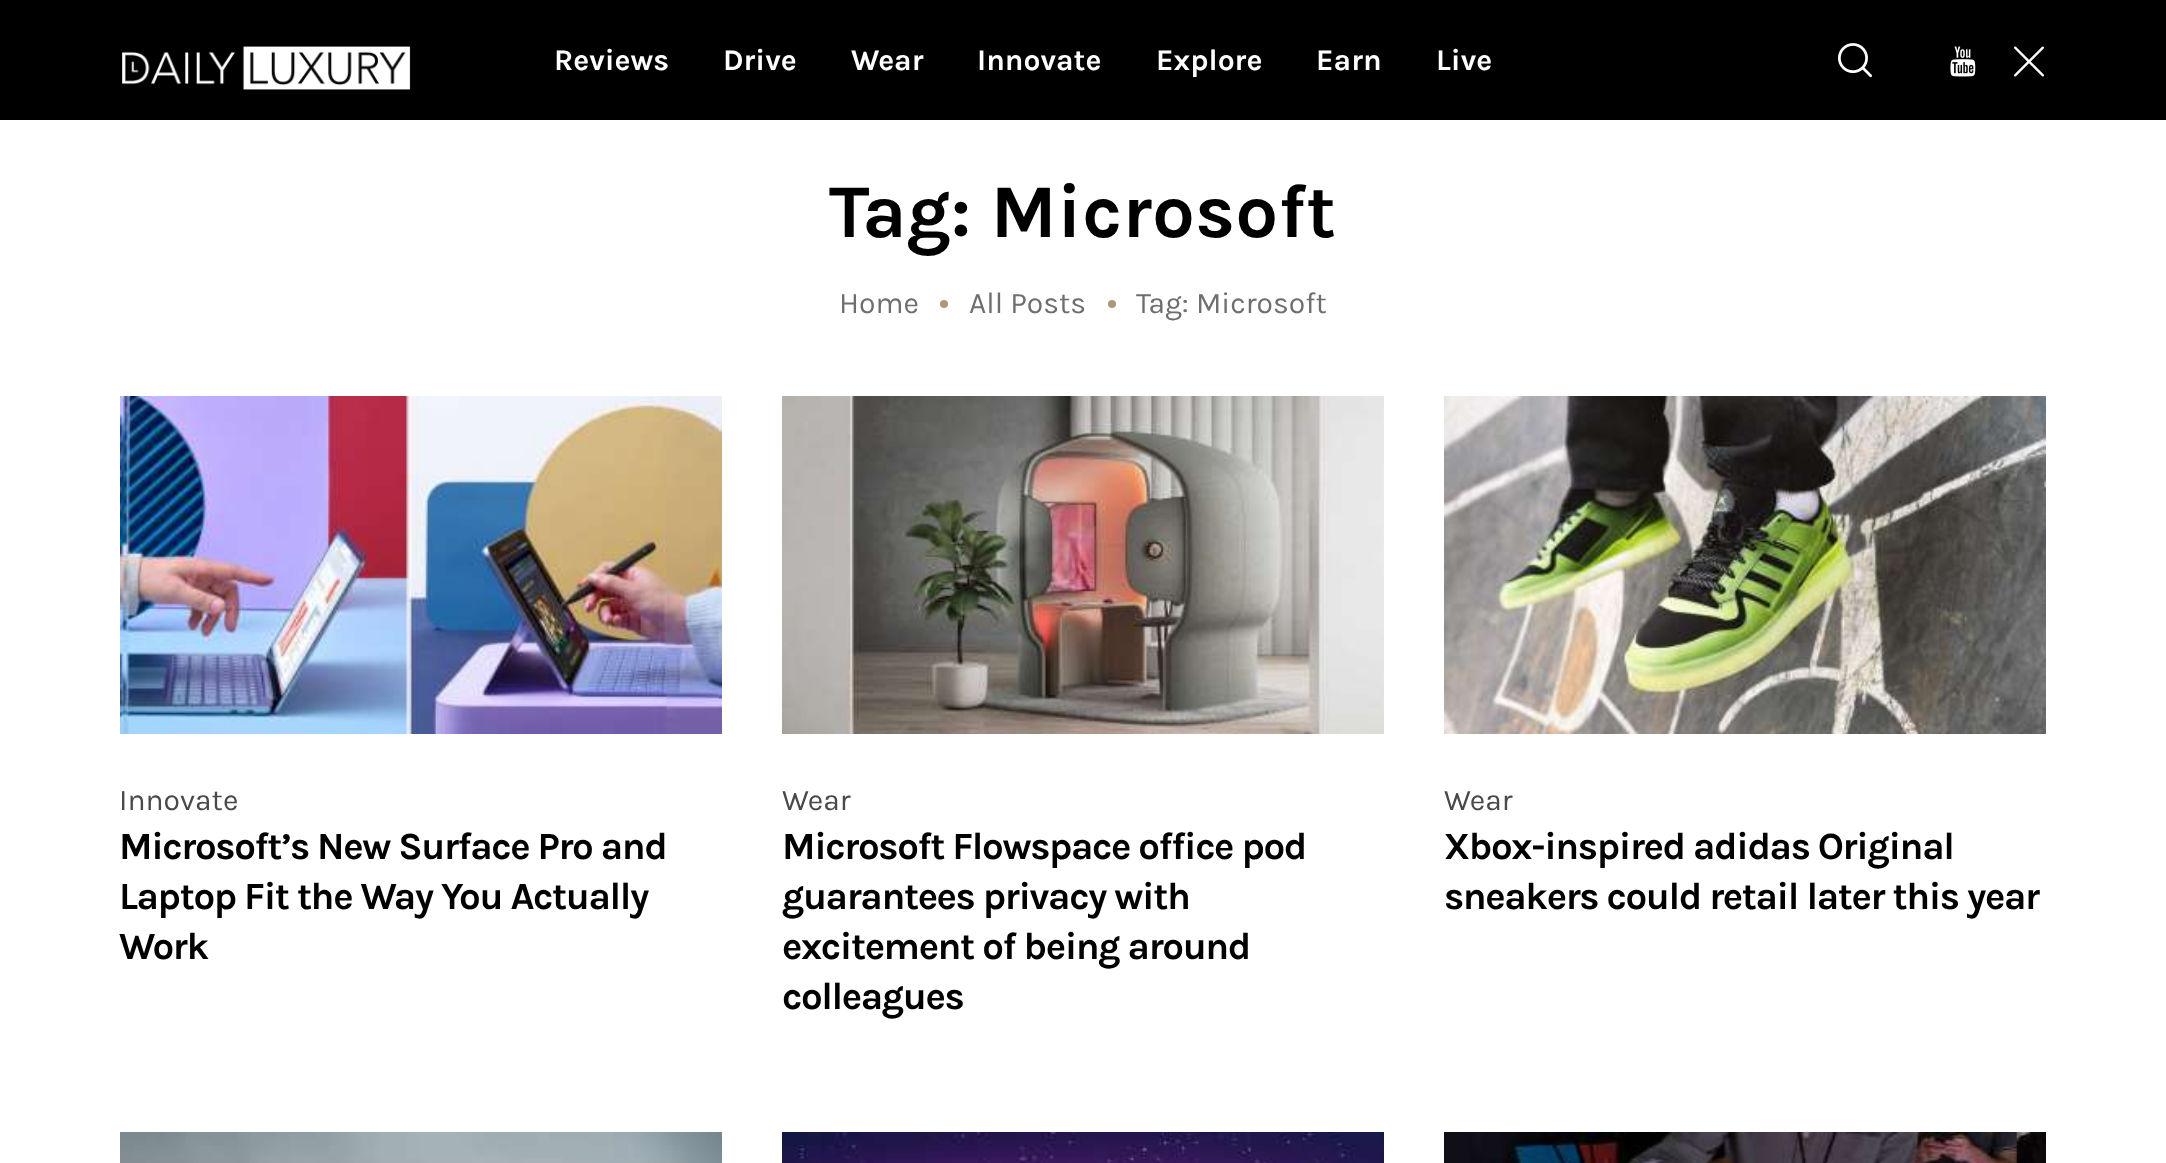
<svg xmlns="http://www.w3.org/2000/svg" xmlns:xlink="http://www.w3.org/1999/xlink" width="2166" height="1163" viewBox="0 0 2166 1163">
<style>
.cls-1{font:bold 30px Karla;fill:#ffffff}
.cls-2{font:bold 76px Karla;fill:#000000}
.cls-3{font:30px Karla;fill:#6e6e6e}
.cls-4{font:30px Karla;fill:#494949}
.cls-5{font:bold 38.4px Karla;letter-spacing:-1.4px;fill:#000000}
</style>
<rect width="100%" height="100%" fill="#ffffff"/>
<rect fill="#000000" x="0" y="0" width="2166" height="120"/>
<image xlink:href="image0.png" x="122" y="46" width="289" height="44"/>
<image xlink:href="image1.png" x="1838" y="43" width="34" height="35"/>
<image xlink:href="image2.png" x="1950" y="46" width="26" height="31"/>
<image xlink:href="image3.png" x="2014" y="46" width="30" height="31"/>
<circle fill="#ae9678" cx="944" cy="304" r="4"/>
<circle fill="#ae9678" cx="1112" cy="304" r="4"/>
<image xlink:href="image4.png" x="120" y="396" width="602" height="338"/>
<image xlink:href="image5.png" x="782" y="396" width="602" height="338"/>
<image xlink:href="image6.png" x="1444" y="396" width="602" height="338"/>
<image xlink:href="image7.png" x="120" y="1132" width="602" height="31"/>
<image xlink:href="image8.png" x="782" y="1132" width="602" height="31"/>
<image xlink:href="image9.png" x="1444" y="1132" width="602" height="31"/>
<text class="cls-1" x="554" y="70">Reviews</text>
<text class="cls-1" x="723" y="70">Drive</text>
<text class="cls-1" x="851" y="70">Wear</text>
<text class="cls-1" x="977" y="70">Innovate</text>
<text class="cls-1" x="1156" y="70">Explore</text>
<text class="cls-1" x="1316" y="70">Earn</text>
<text class="cls-1" x="1436" y="70">Live</text>
<text class="cls-2" x="829" y="237">Tag: Microsoft</text>
<text class="cls-3" x="839" y="313">Home</text>
<text class="cls-3" x="969" y="313">All Posts</text>
<text class="cls-3" x="1136" y="313">Tag: Microsoft</text>
<text class="cls-4" x="119" y="810">Innovate</text>
<text class="cls-5"><tspan x="119" y="859">Microsoft’s New Surface Pro and</tspan><tspan x="119" y="909">Laptop Fit the Way You Actually</tspan><tspan x="119" y="959">Work</tspan></text>
<text class="cls-4" x="782" y="810">Wear</text>
<text class="cls-5"><tspan x="782" y="859">Microsoft Flowspace office pod</tspan><tspan x="782" y="909">guarantees privacy with</tspan><tspan x="782" y="959">excitement of being around</tspan><tspan x="782" y="1009">colleagues</tspan></text>
<text class="cls-4" x="1444" y="810">Wear</text>
<text class="cls-5"><tspan x="1444" y="859">Xbox-inspired adidas Original</tspan><tspan x="1444" y="909">sneakers could retail later this year</tspan></text>
</svg>
